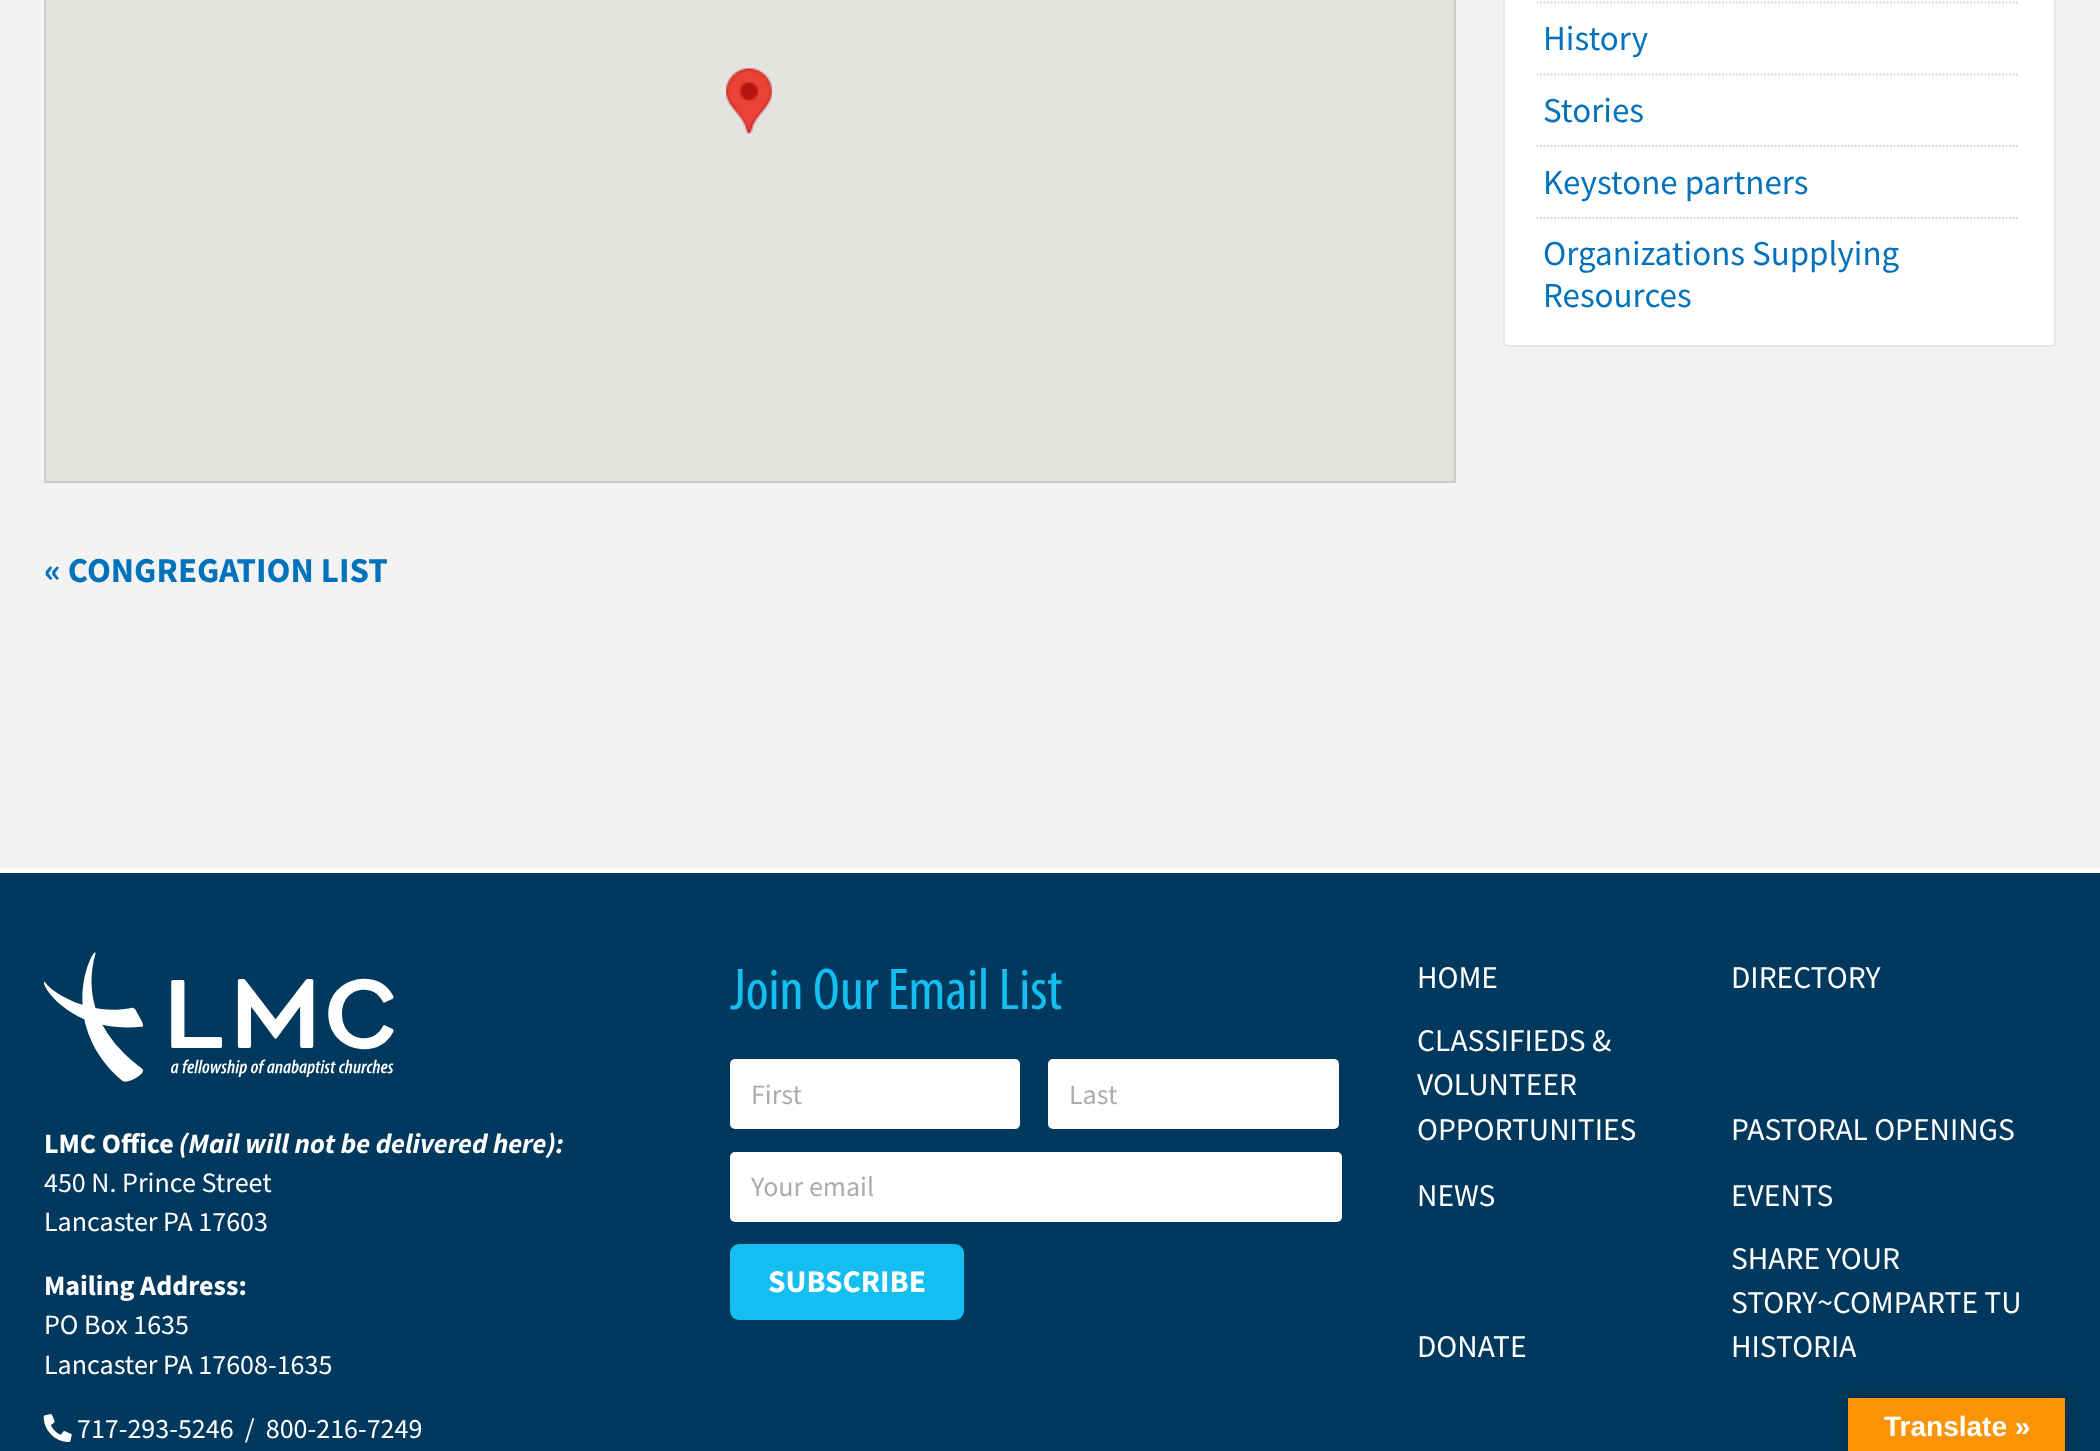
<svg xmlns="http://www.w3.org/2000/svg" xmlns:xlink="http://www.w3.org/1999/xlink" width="2100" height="1451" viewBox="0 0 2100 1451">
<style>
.cls-1{font:35px Source Sans Pro;fill:#0071bb}
.cls-2{font:bold 35px Source Sans Pro;fill:#0071bb}
.cls-3{font:bold 28px Source Sans Pro;fill:#ffffff}
.cls-4{font:italic bold 28px Source Sans Pro;fill:#ffffff}
.cls-5{font:28px Source Sans Pro;fill:#ffffff}
.cls-6{font:59.5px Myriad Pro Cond;fill:#14bef0}
.cls-7{font:28px Source Sans Pro;fill:#acacac}
.cls-8{font:bold 31.5px Source Sans Pro;fill:#ffffff}
.cls-9{font:31.5px Source Sans Pro;fill:#ffffff}
.cls-10{font:bold 28px Liberation Sans;fill:#ffffff}
</style>
<rect width="100%" height="100%" fill="#f3f3f3"/>
<rect fill="#ffffff" stroke="#e7e7e7" stroke-width="2" x="1504" y="-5" width="551" height="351" rx="3"/>
<path fill="none" stroke="#d3d3d3" stroke-width="1.8" stroke-dasharray="1.75 1.75" d="M1536.5 2.5H2019.5"/>
<path fill="none" stroke="#d3d3d3" stroke-width="1.8" stroke-dasharray="1.75 1.75" d="M1536.5 74.5H2019.5"/>
<path fill="none" stroke="#d3d3d3" stroke-width="1.8" stroke-dasharray="1.75 1.75" d="M1536.5 146H2019.5"/>
<path fill="none" stroke="#d3d3d3" stroke-width="1.8" stroke-dasharray="1.75 1.75" d="M1536.5 218H2019.5"/>
<rect fill="none" stroke="#cccccc" stroke-width="2" x="45" y="-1" width="1410" height="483"/>
<rect fill="#e5e3df" x="46" y="0" width="1408" height="481"/>
<image xlink:href="image0.png" x="726" y="68" width="46" height="66"/>
<rect fill="#00395d" x="0" y="873" width="2100" height="578"/>
<rect fill="#ffffff" x="0" y="868" width="2100" height="5"/>
<image xlink:href="image1.png" x="44" y="952" width="350" height="130"/>
<image xlink:href="image2.png" x="43" y="1414" width="29" height="28"/>
<rect fill="#ffffff" x="730" y="1059" width="290" height="70" rx="5"/>
<rect fill="#ffffff" x="1048" y="1059" width="291" height="70" rx="5"/>
<rect fill="#ffffff" x="730" y="1152" width="612" height="70" rx="5"/>
<rect fill="#14bef0" x="730" y="1244" width="234" height="76" rx="9"/>
<rect fill="#000000" fill-opacity="0.3" filter="blur(8px)" x="1848" y="1398" width="217" height="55"/>
<rect fill="#f89406" x="1848" y="1398" width="217" height="53"/>
<text class="cls-1" x="1543" y="50">History</text>
<text class="cls-1" x="1543" y="122">Stories</text>
<text class="cls-1" x="1543" y="194">Keystone partners</text>
<text class="cls-1"><tspan x="1543" y="265">Organizations Supplying</tspan><tspan x="1543" y="307">Resources</tspan></text>
<text class="cls-2" x="44" y="582">« CONGREGATION LIST</text>
<text class="cls-3" x="44" y="1153">LMC Office</text>
<text class="cls-4" x="179" y="1153">(Mail will not be delivered here):</text>
<text class="cls-5"><tspan x="44" y="1192">450 N. Prince Street</tspan><tspan x="44" y="1231">Lancaster PA 17603</tspan></text>
<text class="cls-3" x="44" y="1295">Mailing Address:</text>
<text class="cls-5"><tspan x="44" y="1334">PO Box 1635</tspan><tspan x="44" y="1374">Lancaster PA 17608-1635</tspan></text>
<text class="cls-5" xml:space="preserve" x="77" y="1438">717-293-5246  /  800-216-7249</text>
<text class="cls-6" x="730" y="1009">Join Our Email List</text>
<text class="cls-7" x="751" y="1104">First</text>
<text class="cls-7" x="1069" y="1104">Last</text>
<text class="cls-7" x="751" y="1196">Your email</text>
<text class="cls-8" x="768" y="1292">SUBSCRIBE</text>
<text class="cls-9" x="1417" y="988">HOME</text>
<text class="cls-9" x="1731" y="988">DIRECTORY</text>
<text class="cls-9"><tspan x="1417" y="1051">CLASSIFIEDS &amp;</tspan><tspan x="1417" y="1095">VOLUNTEER</tspan><tspan x="1417" y="1140">OPPORTUNITIES</tspan></text>
<text class="cls-9" x="1731" y="1140">PASTORAL OPENINGS</text>
<text class="cls-9" x="1417" y="1206">NEWS</text>
<text class="cls-9" x="1731" y="1206">EVENTS</text>
<text class="cls-9" x="1417" y="1357">DONATE</text>
<text class="cls-9"><tspan x="1731" y="1269">SHARE YOUR</tspan><tspan x="1731" y="1313">STORY~COMPARTE TU</tspan><tspan x="1731" y="1357">HISTORIA</tspan></text>
<text class="cls-10" x="1884" y="1436">Translate »</text>
</svg>
